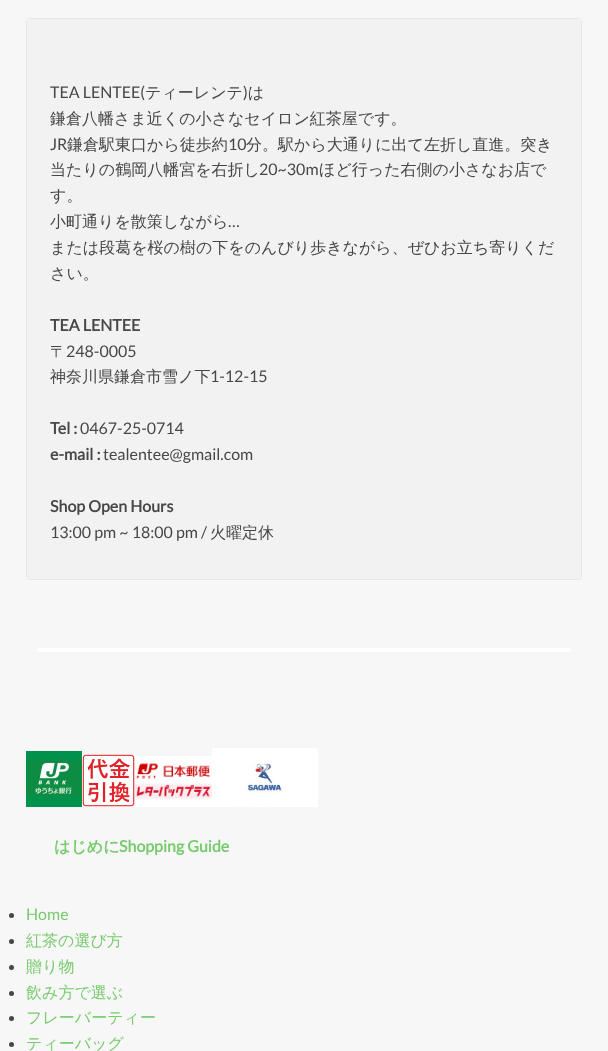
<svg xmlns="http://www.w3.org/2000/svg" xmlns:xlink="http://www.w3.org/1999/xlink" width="608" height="1051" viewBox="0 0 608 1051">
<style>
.cls-1{font:16px Lato;fill:#474747}
.cls-2{font:500 16px WenQuanYi Zen Hei;fill:#474747}
.cls-3{font:bold 16px Lato;fill:#474747}
.cls-4{font:bold 16px WenQuanYi Zen Hei;fill:#77cb6d}
.cls-5{font:bold 16px Lato;fill:#77cb6d}
.cls-6{font:16px Lato;fill:#77cb6d}
.cls-7{font:500 16px WenQuanYi Zen Hei;fill:#77cb6d}
</style>
<rect width="100%" height="100%" fill="#f7f7f7"/>
<rect fill="none" stroke="#e6e6e6" x="26.5" y="18.5" width="555" height="561" rx="3.5"/>
<path fill="#f2f2f2" d="M27 19H581V575C581 577 579 579 577 579H27Z"/>
<rect fill="#ffffff" x="37" y="648" width="534" height="4" rx="2"/>
<image xlink:href="image0.png" x="26" y="751" width="56" height="56"/>
<image xlink:href="image1.png" x="82" y="754" width="53" height="53"/>
<image xlink:href="image2.png" x="135" y="756" width="77" height="51"/>
<image xlink:href="image3.png" x="212" y="748" width="106" height="59"/>
<circle fill="#474747" cx="11.5" cy="915.5" r="2.5"/>
<circle fill="#474747" cx="11.5" cy="941.5" r="2.5"/>
<circle fill="#474747" cx="11.5" cy="967.5" r="2.5"/>
<circle fill="#474747" cx="11.5" cy="993.5" r="2.5"/>
<circle fill="#474747" cx="11.5" cy="1018.5" r="2.5"/>
<circle fill="#474747" cx="11.5" cy="1044.5" r="2.5"/>
<text class="cls-1" x="50" y="98">TEA LENTEE(</text>
<text class="cls-2" x="145" y="98">ティーレンテ は</text>
<text class="cls-1" x="243" y="98">)</text>
<text class="cls-2" x="50" y="124">鎌倉八幡さま近くの小さなセイロン紅茶屋です。</text>
<text class="cls-1" x="50" y="150">JR</text>
<text class="cls-2" x="67" y="150">鎌倉駅東口から徒歩約</text>
<text class="cls-1" x="228" y="150">10</text>
<text class="cls-2" x="246" y="150">分。駅から大通りに出て左折し直進。突き</text>
<text class="cls-2" x="50" y="175">当たりの鶴岡八幡宮を右折し</text>
<text class="cls-1" x="259" y="175">20~30m</text>
<text class="cls-2" x="319" y="175">ほど行った右側の小さなお店で</text>
<text class="cls-2"><tspan x="50" y="201">す。</tspan><tspan x="50" y="227">小町通りを散策しながら</tspan></text>
<text class="cls-1" x="228" y="227">…</text>
<text class="cls-2"><tspan x="50" y="253">または段葛を桜の樹の下をのんびり歩きながら、ぜひお立ち寄りくだ</tspan><tspan x="50" y="279">さい。</tspan></text>
<text class="cls-3" x="50" y="331">TEA LENTEE</text>
<text class="cls-2" x="50" y="357">〒</text>
<text class="cls-1" x="66" y="357">248-0005</text>
<text class="cls-2" x="50" y="382">神奈川県鎌倉市雪ノ下</text>
<text class="cls-1" x="210" y="382">1-12-15</text>
<text class="cls-3" x="50" y="434">Tel :</text>
<text class="cls-1" x="80" y="434">0467-25-0714</text>
<text class="cls-3" x="50" y="460">e-mail :</text>
<text class="cls-1" x="103" y="460">tealentee@gmail.com</text>
<text class="cls-3" x="50" y="512">Shop Open Hours</text>
<text class="cls-1" x="50" y="538">13:00 pm ~ 18:00 pm /</text>
<text class="cls-2" x="210" y="538">火曜定休</text>
<text class="cls-4" x="54" y="852">はじめに</text>
<text class="cls-5" x="119" y="852">Shopping Guide</text>
<text class="cls-6" x="26" y="920">Home</text>
<text class="cls-7"><tspan x="26" y="946">紅茶の選び方</tspan><tspan x="26" y="972">贈り物</tspan><tspan x="26" y="998">飲み方で選ぶ</tspan><tspan x="26" y="1023">フレーバーティー</tspan><tspan x="26" y="1049">ティーバッグ</tspan></text>
</svg>
